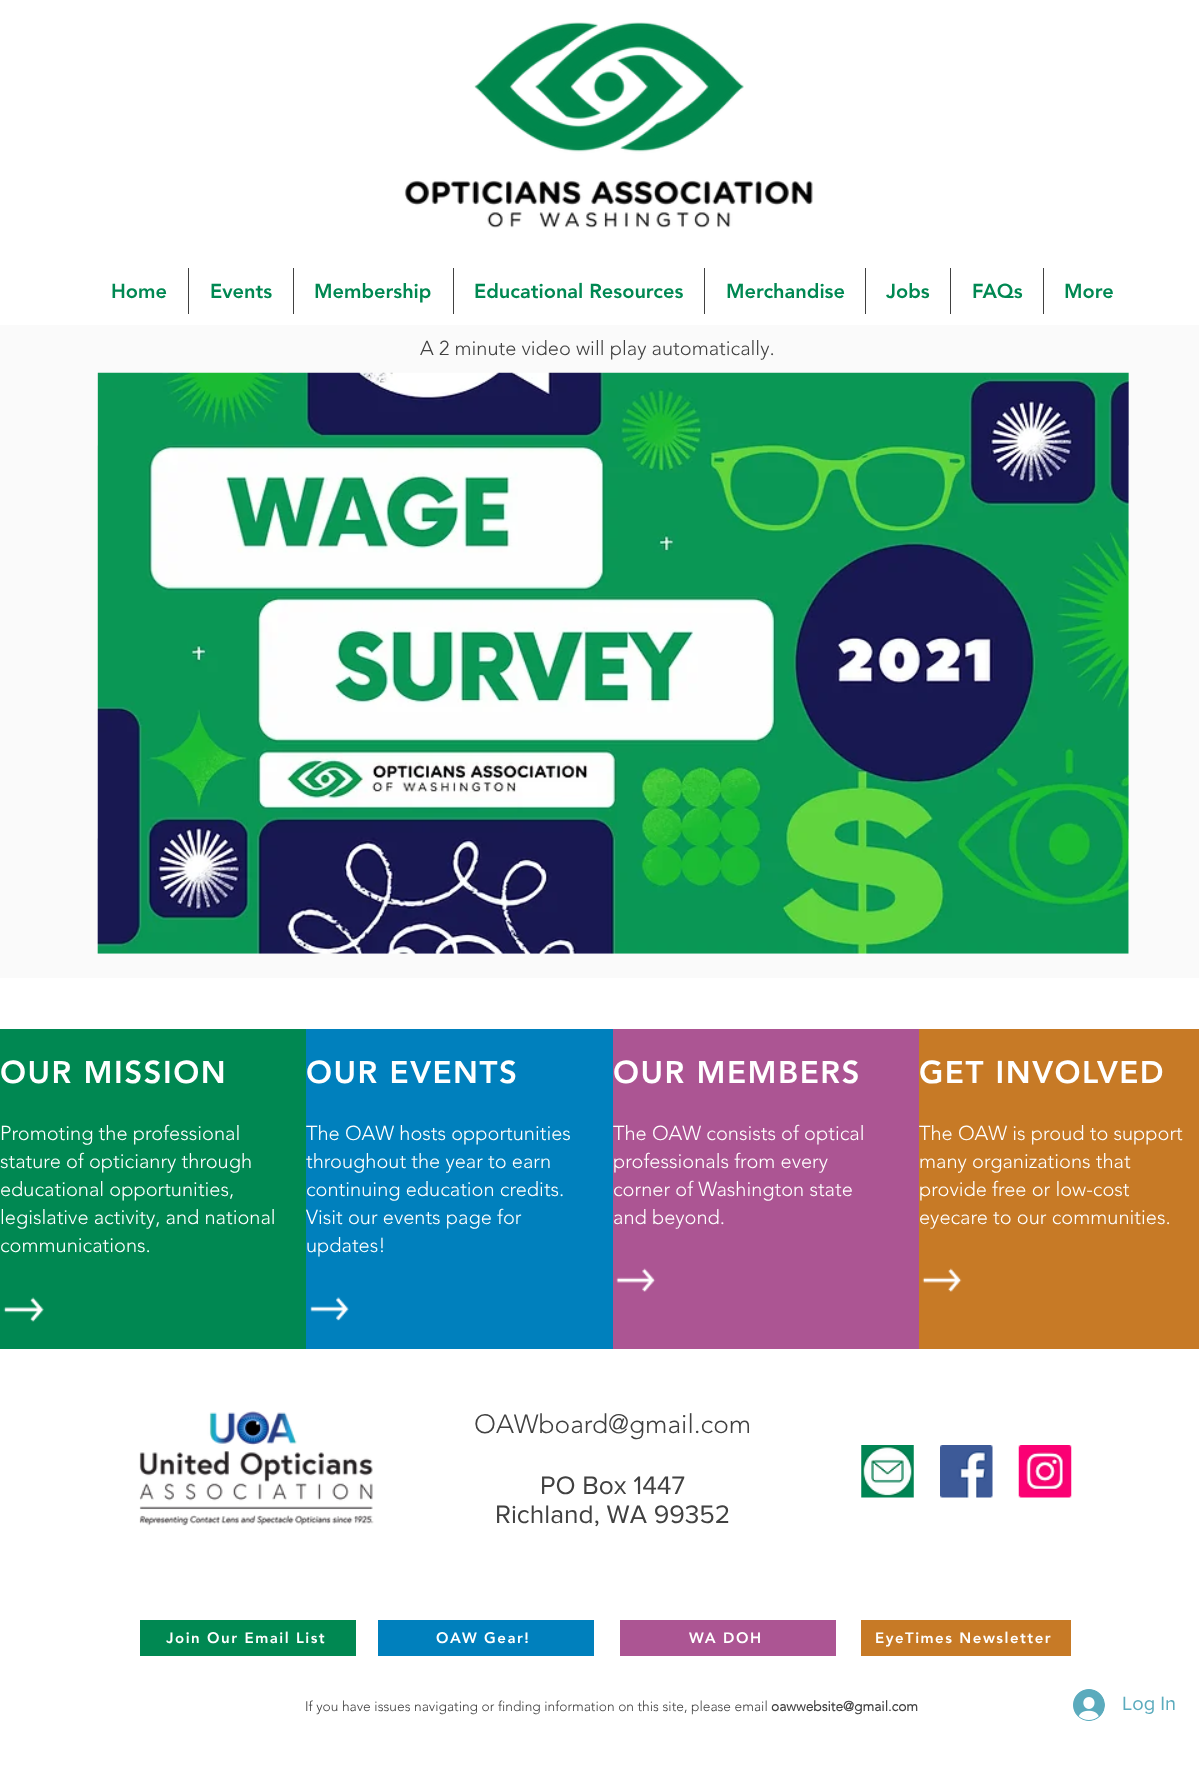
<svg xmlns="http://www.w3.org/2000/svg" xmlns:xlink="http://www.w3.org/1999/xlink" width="1199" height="1780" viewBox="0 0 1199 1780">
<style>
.cls-1{font:900 20px 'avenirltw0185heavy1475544';fill:#008852}
.cls-2{font:300 20px 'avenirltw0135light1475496';fill:#414141}
.cls-3{font:900 31.25px 'avenirltw0185heavy1475544';letter-spacing:1.5px;fill:#ffffff}
.cls-4{font:300 20px 'avenirltw0135light1475496';fill:#ffffff}
.cls-5{font:300 26.25px 'avenirltw0135light1475496';fill:#414141}
.cls-6{font:26.25px 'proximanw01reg';fill:#414141}
.cls-7{font:900 15px 'avenirltw0185heavy1475544';letter-spacing:1.5px;fill:#ffffff}
.cls-8{font:300 13.75px 'avenirltw0135light1475496';fill:#414141}
.cls-9{font:bold 13.75px 'avenirltw0135light1475496';fill:#414141}
.cls-10{font:20px 'proximanw01reg';fill:#5babbd}
</style>
<rect width="100%" height="100%" fill="#ffffff"/>
<image xlink:href="image0.png" x="404" y="22" width="409" height="206"/>
<rect fill="#414141" x="188" y="268" width="1" height="46"/>
<rect fill="#414141" x="293" y="268" width="1" height="46"/>
<rect fill="#414141" x="453" y="268" width="1" height="46"/>
<rect fill="#414141" x="704" y="268" width="1" height="46"/>
<rect fill="#414141" x="865" y="268" width="1" height="46"/>
<rect fill="#414141" x="950" y="268" width="1" height="46"/>
<rect fill="#414141" x="1043" y="268" width="1" height="46"/>
<rect fill="#fafafa" x="0" y="325" width="1199" height="653"/>
<image xlink:href="image1.png" x="97" y="372" width="1032" height="582"/>
<rect fill="#008852" x="0" y="1029" width="306" height="320"/>
<image xlink:href="image2.png" x="3" y="1297" width="41" height="25"/>
<rect fill="#0080bd" x="306" y="1029" width="307" height="320"/>
<image xlink:href="image3.png" x="310" y="1297" width="39" height="24"/>
<rect fill="#ac5593" x="613" y="1029" width="306" height="320"/>
<image xlink:href="image4.png" x="616" y="1268" width="40" height="24"/>
<rect fill="#c77a26" x="919" y="1029" width="280" height="320"/>
<image xlink:href="image5.png" x="922" y="1268" width="40" height="24"/>
<image xlink:href="image6.png" x="139" y="1411" width="235" height="115"/>
<image xlink:href="image7.png" x="861" y="1445" width="53" height="53"/>
<image xlink:href="image8.png" x="940" y="1445" width="53" height="53"/>
<image xlink:href="image9.png" x="1018" y="1445" width="54" height="53"/>
<rect fill="#008852" x="140" y="1620" width="216" height="36"/>
<rect fill="#0080bd" x="378" y="1620" width="216" height="36"/>
<rect fill="#ac5593" x="620" y="1620" width="216" height="36"/>
<rect fill="#c77a26" x="861" y="1620" width="210" height="36"/>
<image xlink:href="image10.png" x="1073" y="1689" width="32" height="32"/>
<text class="cls-1" x="111" y="298">Home</text>
<text class="cls-1" x="210" y="298">Events</text>
<text class="cls-1" x="314" y="298">Membership</text>
<text class="cls-1" x="474" y="298">Educational Resources</text>
<text class="cls-1" x="726" y="298">Merchandise</text>
<text class="cls-1" x="886" y="298">Jobs</text>
<text class="cls-1" x="972" y="298">FAQs</text>
<text class="cls-1" x="1064" y="298">More</text>
<text class="cls-2" x="420" y="355">A 2 minute video will play automatically.</text>
<text class="cls-3" x="0" y="1083">OUR MISSION</text>
<text class="cls-4"><tspan x="0" y="1140">Promoting the professional</tspan><tspan x="0" y="1168">stature of opticianry through</tspan><tspan x="0" y="1196">educational opportunities,</tspan><tspan x="0" y="1224">legislative activity, and national</tspan><tspan x="0" y="1252">communications.</tspan></text>
<text class="cls-3" x="306" y="1083">OUR EVENTS</text>
<text class="cls-4"><tspan x="306" y="1140">The OAW hosts opportunities</tspan><tspan x="306" y="1168">throughout the year to earn</tspan><tspan x="306" y="1196">continuing education credits.</tspan><tspan x="306" y="1224">Visit our events page for</tspan><tspan x="306" y="1252">updates!</tspan></text>
<text class="cls-3" x="613" y="1083">OUR MEMBERS</text>
<text class="cls-4"><tspan x="613" y="1140">The OAW consists of optical</tspan><tspan x="613" y="1168">professionals from every</tspan><tspan x="613" y="1196">corner of Washington state</tspan><tspan x="613" y="1224">and beyond.</tspan></text>
<text class="cls-3" x="919" y="1083">GET INVOLVED</text>
<text class="cls-4"><tspan x="919" y="1140">The OAW is proud to support</tspan><tspan x="919" y="1168">many organizations that</tspan><tspan x="919" y="1196">provide free or low-cost</tspan><tspan x="919" y="1224">eyecare to our communities.</tspan></text>
<text class="cls-5" x="474" y="1433">OAWboard@gmail.com</text>
<text class="cls-6" x="540" y="1494">PO Box 1447</text>
<text class="cls-6" x="495" y="1523">Richland, WA 99352</text>
<text class="cls-7" x="166" y="1643">Join Our Email List</text>
<text class="cls-7" x="436" y="1643">OAW Gear!</text>
<text class="cls-7" x="689" y="1643">WA DOH</text>
<text class="cls-7" x="875" y="1643">EyeTimes Newsletter</text>
<text class="cls-8" x="305" y="1711">If you have issues navigating or finding information on this site, please email</text>
<text class="cls-9" x="771" y="1711">oawwebsite@gmail.com</text>
<text class="cls-10" x="1122" y="1710">Log In</text>
</svg>
